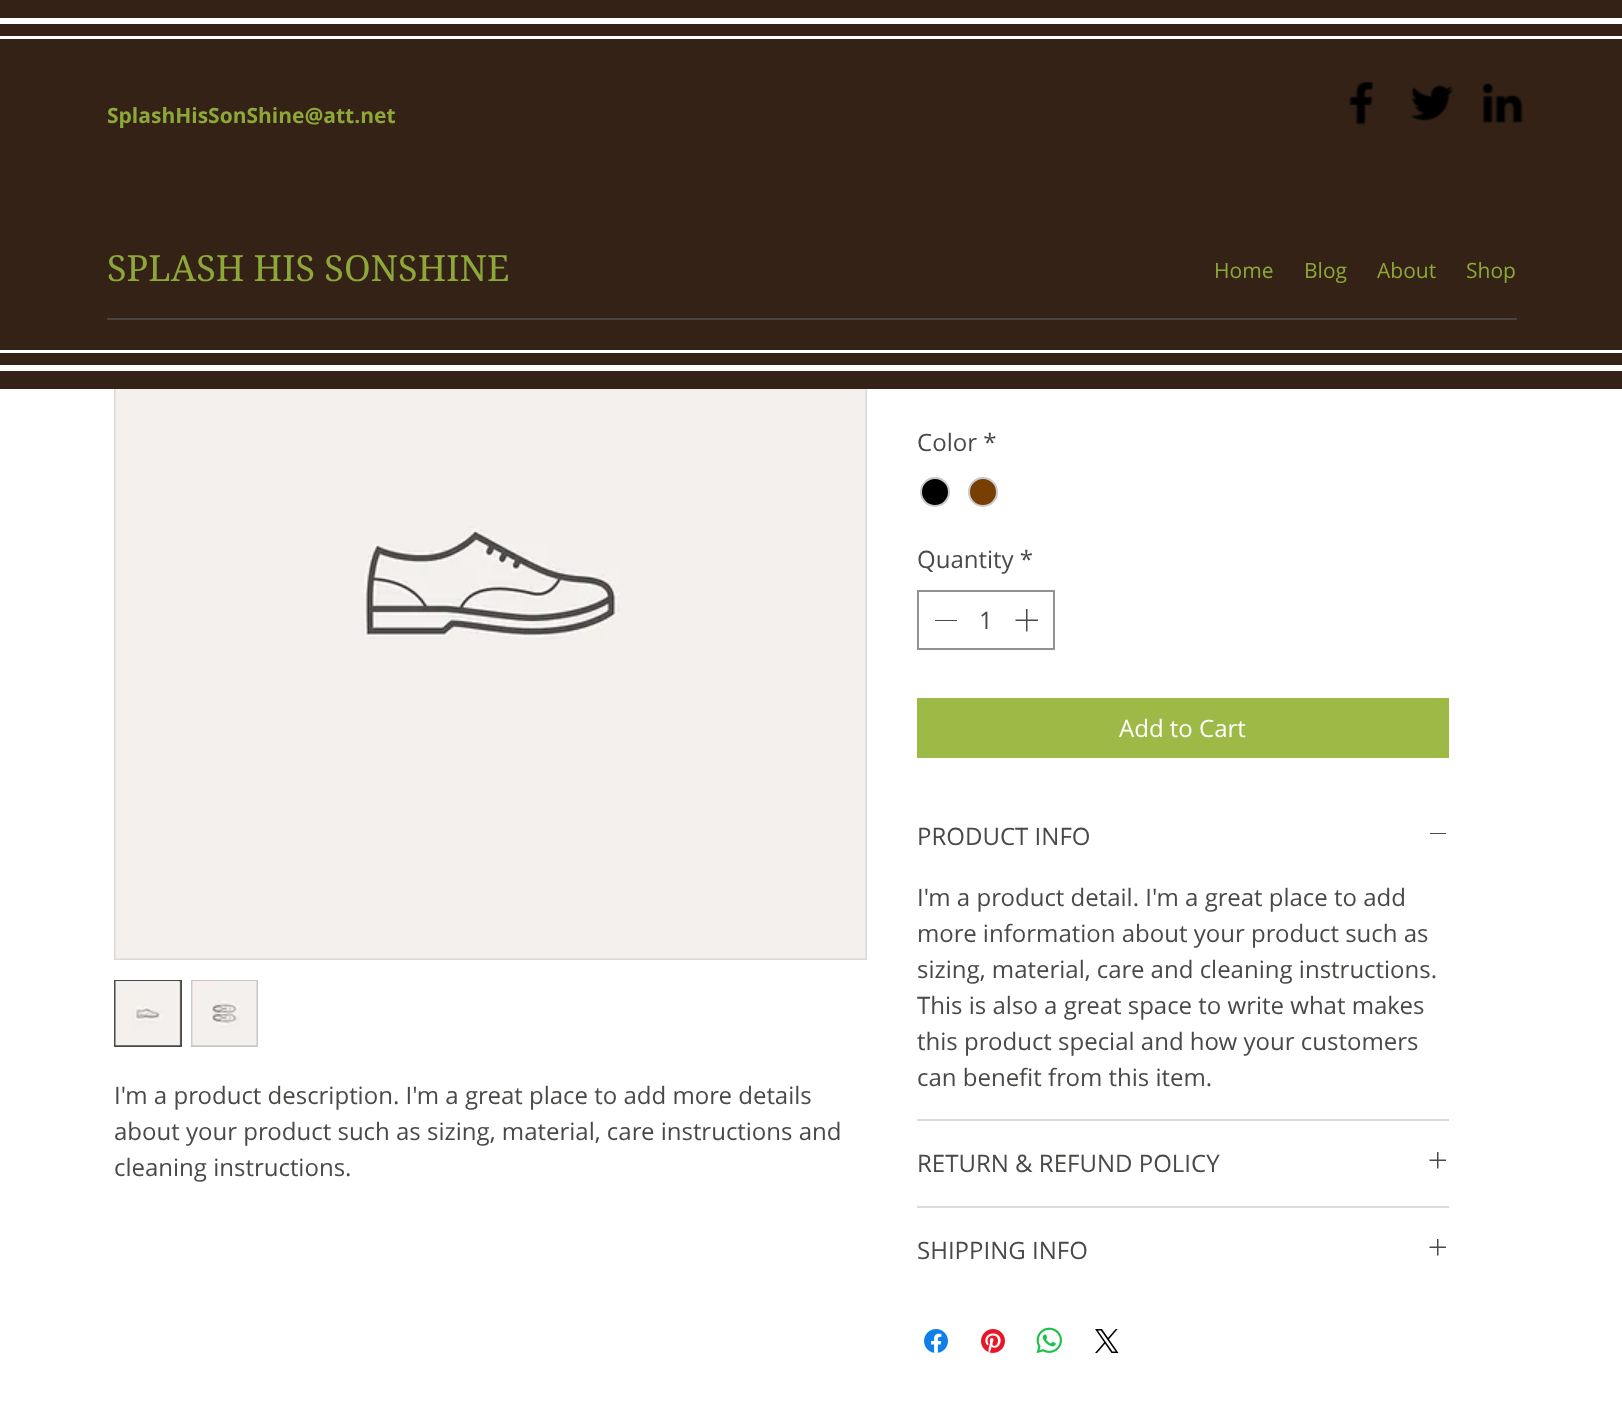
<svg xmlns="http://www.w3.org/2000/svg" xmlns:xlink="http://www.w3.org/1999/xlink" width="1622" height="1414" viewBox="0 0 1622 1414">
<style>
.cls-1{font:bold 21px Open Sans;fill:#8da839}
.cls-2{font:36px 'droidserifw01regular';fill:#8da839}
.cls-3{font:21px Open Sans;fill:#8da839}
.cls-4{font:24px Open Sans;fill:#494947}
.cls-5{font:24px Open Sans;fill:#ffffff}
</style>
<rect width="100%" height="100%" fill="#ffffff"/>
<rect fill="none" stroke="#dbdbda" stroke-width="2" x="115" y="208" width="751" height="751"/>
<rect fill="#342216" x="0" y="0" width="1622" height="389"/>
<rect fill="#ffffff" x="0" y="18" width="1622" height="6"/>
<rect fill="#ffffff" x="0" y="365" width="1622" height="6"/>
<rect fill="#ffffff" x="0" y="36" width="1622" height="3"/>
<rect fill="#ffffff" x="0" y="350" width="1622" height="3"/>
<image xlink:href="image0.png" x="1349" y="81" width="24" height="44"/>
<image xlink:href="image1.png" x="1411" y="85" width="42" height="36"/>
<image xlink:href="image2.png" x="1482" y="83" width="41" height="40"/>
<rect fill="#464340" x="107" y="318" width="1410" height="2"/>
<image xlink:href="image3.png" x="115" y="389" width="751" height="570"/>
<rect fill="#c7c7c5" x="179" y="982" width="1" height="63"/>
<rect fill="none" stroke="#494947" stroke-width="2" x="115" y="981" width="66" height="65"/>
<image xlink:href="image4.png" x="115" y="981" width="66" height="65"/>
<rect fill="#c7c7c5" x="191" y="980" width="67" height="67"/>
<image xlink:href="image5.png" x="191" y="981" width="66" height="65"/>
<circle fill="#000000" stroke="#c9c9c9" stroke-width="2" cx="935" cy="492" r="14"/>
<circle fill="#783f04" stroke="#c9c9c9" stroke-width="2" cx="983" cy="492" r="14"/>
<rect fill="none" stroke="#929291" stroke-width="2" x="918" y="591" width="136" height="58"/>
<rect fill="#494947" x="935" y="620" width="22" height="1"/>
<image xlink:href="image6.png" x="1015" y="609" width="23" height="23"/>
<rect fill="#9db946" x="917" y="698" width="532" height="60"/>
<rect fill="#dbdbda" x="917" y="1119" width="532" height="2"/>
<rect fill="#494947" x="1430" y="833" width="16" height="1"/>
<rect fill="#dbdbda" x="917" y="1206" width="532" height="2"/>
<image xlink:href="image7.png" x="1429" y="1152" width="17" height="17"/>
<image xlink:href="image7.png" x="1429" y="1239" width="17" height="17"/>
<image xlink:href="image8.png" x="924" y="1329" width="24" height="24"/>
<image xlink:href="image9.png" x="981" y="1329" width="24" height="24"/>
<image xlink:href="image10.png" x="1036" y="1327" width="26" height="27"/>
<image xlink:href="image11.png" x="1095" y="1329" width="24" height="24"/>
<text class="cls-1" x="107" y="123">SplashHisSonShine@att.net</text>
<text class="cls-2" x="107" y="281">SPLASH HIS SONSHINE</text>
<text class="cls-3" x="1214" y="278">Home</text>
<text class="cls-3" x="1304" y="278">Blog</text>
<text class="cls-3" x="1377" y="278">About</text>
<text class="cls-3" x="1466" y="278">Shop</text>
<text class="cls-4"><tspan x="114" y="1104">I'm a product description. I'm a great place to add more details</tspan><tspan x="114" y="1140">about your product such as sizing, material, care instructions and</tspan><tspan x="114" y="1176">cleaning instructions.</tspan></text>
<text class="cls-4" x="917" y="451">Color *</text>
<text class="cls-4" x="917" y="568">Quantity *</text>
<text class="cls-4" x="979" y="629">1</text>
<text class="cls-5" x="1119" y="737">Add to Cart</text>
<text class="cls-4" x="917" y="845">PRODUCT INFO</text>
<text class="cls-4"><tspan x="917" y="906">I'm a product detail. I'm a great place to add</tspan><tspan x="917" y="942">more information about your product such as</tspan><tspan x="917" y="978">sizing, material, care and cleaning instructions.</tspan><tspan x="917" y="1014">This is also a great space to write what makes</tspan><tspan x="917" y="1050">this product special and how your customers</tspan><tspan x="917" y="1086">can benefit from this item.</tspan></text>
<text class="cls-4" x="917" y="1172">RETURN &amp; REFUND POLICY</text>
<text class="cls-4" x="917" y="1259">SHIPPING INFO</text>
</svg>
